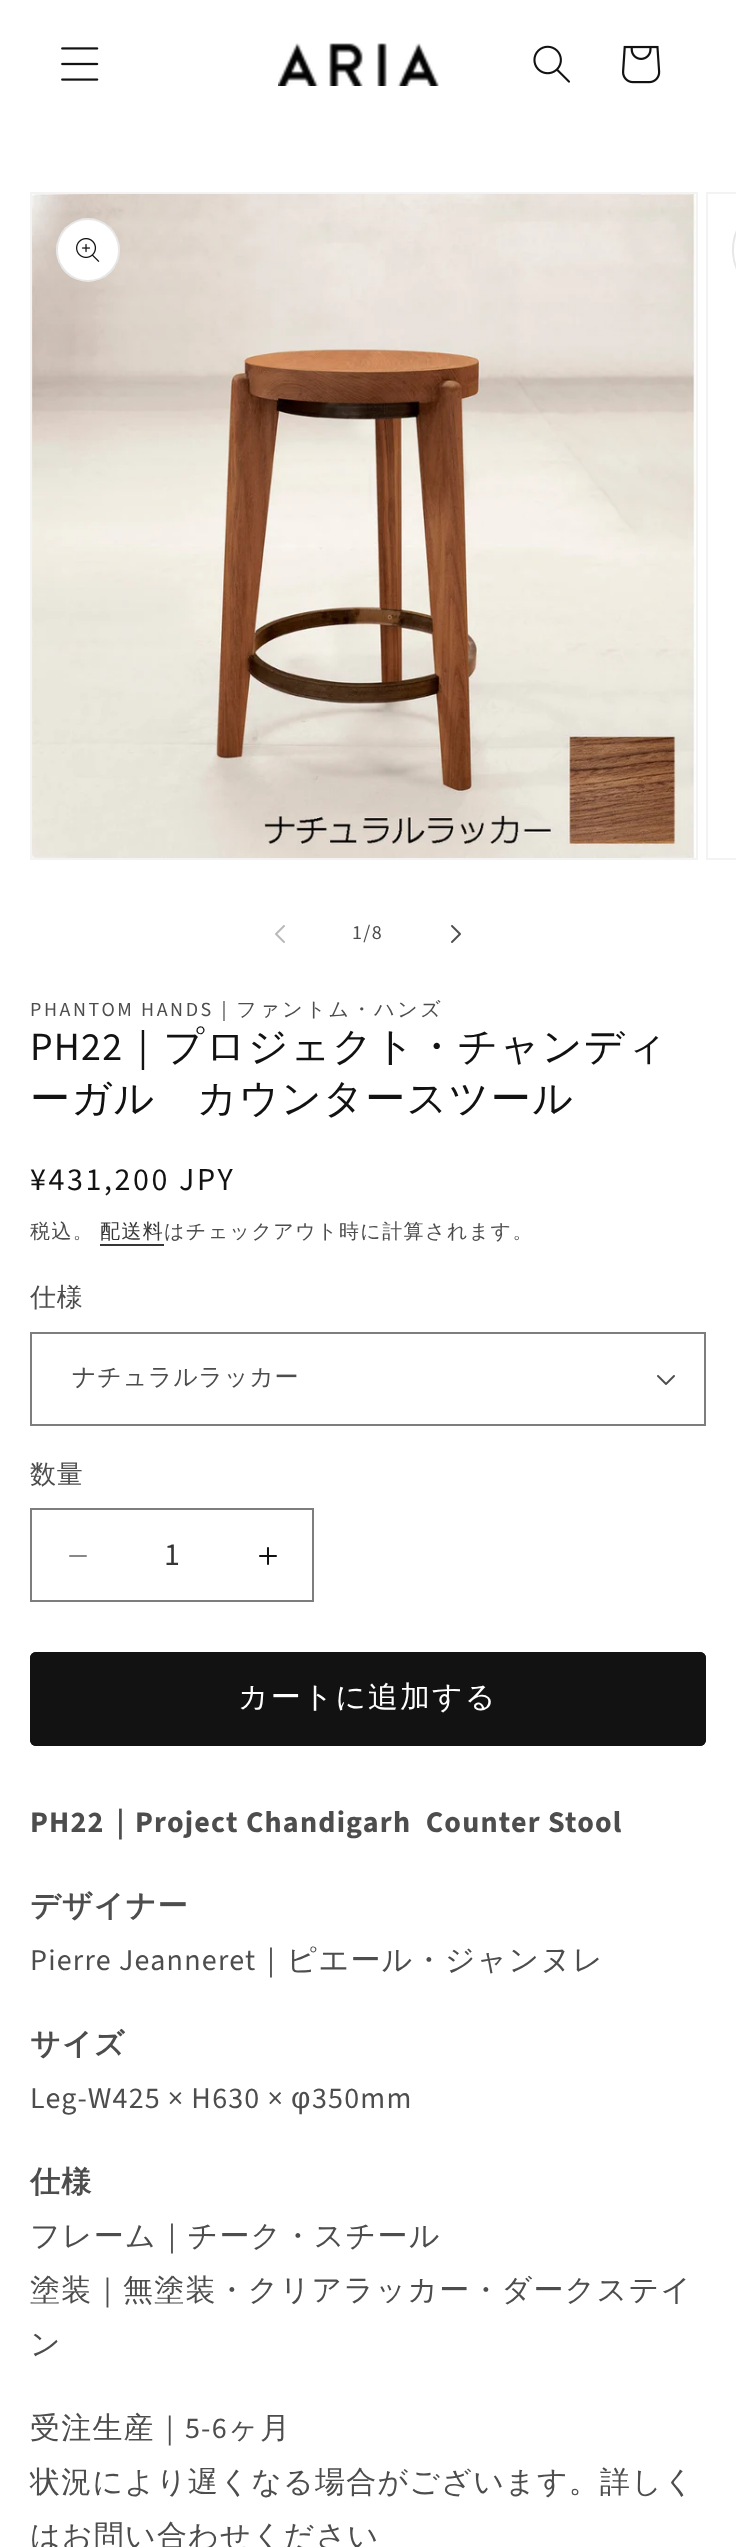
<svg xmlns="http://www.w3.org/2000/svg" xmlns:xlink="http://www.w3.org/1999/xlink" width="736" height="2547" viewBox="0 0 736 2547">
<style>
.cls-1{font:20px Source Sans Pro;letter-spacing:1.4px;fill:#4d4d4d}
.cls-2{font:20px Source Sans Pro;letter-spacing:2.6px;fill:#4d4d4d}
.cls-3{font:500 20px WenQuanYi Zen Hei;letter-spacing:2.6px;fill:#4d4d4d}
.cls-4{font:40px Source Sans Pro;letter-spacing:1.2px;fill:#121212}
.cls-5{font:500 40px WenQuanYi Zen Hei;letter-spacing:1.2px;fill:#121212}
.cls-6{font:32px Source Sans Pro;letter-spacing:2.6px;fill:#121212}
.cls-7{font:500 20px WenQuanYi Zen Hei;letter-spacing:1.4px;fill:#4d4d4d}
.cls-8{font:500 20px WenQuanYi Zen Hei;letter-spacing:1.4px;fill:#363636}
.cls-9{font:500 26px WenQuanYi Zen Hei;letter-spacing:0.75px;fill:#4d4d4d}
.cls-10{font:500 24px WenQuanYi Zen Hei;letter-spacing:0.75px;fill:#4d4d4d}
.cls-11{font:32px Source Sans Pro;fill:#363636}
.cls-12{font:500 30px WenQuanYi Zen Hei;letter-spacing:2px;fill:#ffffff}
.cls-13{font:bold 30px Source Sans Pro;letter-spacing:1.2px;fill:#4d4d4d}
.cls-14{font:bold 30px WenQuanYi Zen Hei;letter-spacing:1.2px;fill:#4d4d4d}
.cls-15{font:30px Source Sans Pro;letter-spacing:1.2px;fill:#4d4d4d}
.cls-16{font:500 30px WenQuanYi Zen Hei;letter-spacing:1.2px;fill:#4d4d4d}
.cls-17{font:30px Liberation Sans;letter-spacing:1.2px;fill:#4d4d4d}
</style>
<rect width="100%" height="100%" fill="#ffffff"/>
<image xlink:href="image0.png" x="61" y="47" width="38" height="34"/>
<image xlink:href="image1.png" x="278" y="43" width="161" height="43"/>
<image xlink:href="image2.png" x="533" y="45" width="37" height="38"/>
<image xlink:href="image3.png" x="622" y="45" width="39" height="39"/>
<rect fill="none" stroke="#f3f3f3" stroke-width="2" x="31" y="193" width="666" height="666"/>
<image xlink:href="image4.png" x="32" y="194" width="664" height="664"/>
<circle fill="#ffffff" cx="88" cy="250" r="32"/>
<circle fill="none" stroke="#121212" stroke-opacity="0.1" stroke-width="2" cx="88" cy="250" r="31"/>
<image xlink:href="image5.png" x="76" y="238" width="24" height="24"/>
<rect fill="none" stroke="#f3f3f3" stroke-width="2" x="707" y="193" width="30" height="666"/>
<rect fill="none" stroke="#e7e7e7" stroke-width="2" x="733" y="219" width="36" height="62" rx="31"/>
<image xlink:href="image6.png" x="275" y="925" width="10" height="18"/>
<image xlink:href="image7.png" x="451" y="925" width="10" height="18"/>
<rect fill="#363636" x="100" y="1244" width="64" height="2"/>
<image xlink:href="image8.png" x="657" y="1375" width="18" height="10"/>
<rect fill="none" stroke="#7d7d7d" stroke-width="2" x="31" y="1333" width="674" height="92"/>
<image xlink:href="image9.png" x="69" y="1555" width="18" height="2"/>
<image xlink:href="image10.png" x="259" y="1547" width="18" height="18"/>
<rect fill="none" stroke="#7d7d7d" stroke-width="2" x="31" y="1509" width="282" height="92"/>
<rect fill="#121212" x="30" y="1652" width="676" height="94" rx="6"/>
<rect fill="none" stroke="#121212" stroke-width="2" x="31" y="1653" width="674" height="92" rx="5"/>
<text class="cls-1" x="352" y="939">1/8</text>
<text class="cls-2" x="30" y="1016">PHANTOM HANDS</text>
<text class="cls-3" x="214" y="1016">｜ファントム・ハンズ</text>
<text class="cls-4" x="30" y="1060">PH22</text>
<text class="cls-5" x="123" y="1060">｜プロジェクト・チャンディ</text>
<text class="cls-5" x="30" y="1112">ーガル　カウンタースツール</text>
<text class="cls-6" x="30" y="1190">¥431,200 JPY</text>
<text class="cls-7" x="30" y="1238">税込。</text>
<text class="cls-8" x="100" y="1238">配送料</text>
<text class="cls-7" x="164" y="1238">はチェックアウト時に計算されます。</text>
<text class="cls-9" x="30" y="1306">仕様</text>
<text class="cls-10" x="72" y="1385">ナチュラルラッカー</text>
<text class="cls-9" x="30" y="1483">数量</text>
<text class="cls-11" x="164" y="1565">1</text>
<text class="cls-12" x="238" y="1707">カートに追加する</text>
<text class="cls-13" x="30" y="1832">PH22</text>
<text class="cls-14" x="105" y="1832">｜</text>
<text class="cls-13" xml:space="preserve" x="135" y="1832">Project Chandigarh  Counter Stool</text>
<text class="cls-14" x="30" y="1916">デザイナー</text>
<text class="cls-15" x="30" y="1970">Pierre Jeanneret</text>
<text class="cls-16" x="256" y="1970">｜ピエール・ジャンヌレ</text>
<text class="cls-14" x="30" y="2054">サイズ</text>
<text class="cls-15" x="30" y="2108">Leg-W425 × H630 ×</text>
<text class="cls-17" x="291" y="2108">φ</text>
<text class="cls-15" x="312" y="2108">350mm</text>
<text class="cls-14" x="30" y="2192">仕様</text>
<text class="cls-16"><tspan x="30" y="2246">フレーム｜チーク・スチール</tspan><tspan x="30" y="2300">塗装｜無塗装・クリアラッカー・ダークステイ</tspan><tspan x="30" y="2354">ン</tspan></text>
<text class="cls-16" x="30" y="2438">受注生産｜</text>
<text class="cls-15" x="185" y="2438">5-6</text>
<text class="cls-16" x="228" y="2438">ヶ月</text>
<text class="cls-16"><tspan x="30" y="2492">状況により遅くなる場合がございます。詳しく</tspan><tspan x="30" y="2546">はお問い合わせください</tspan></text>
</svg>
